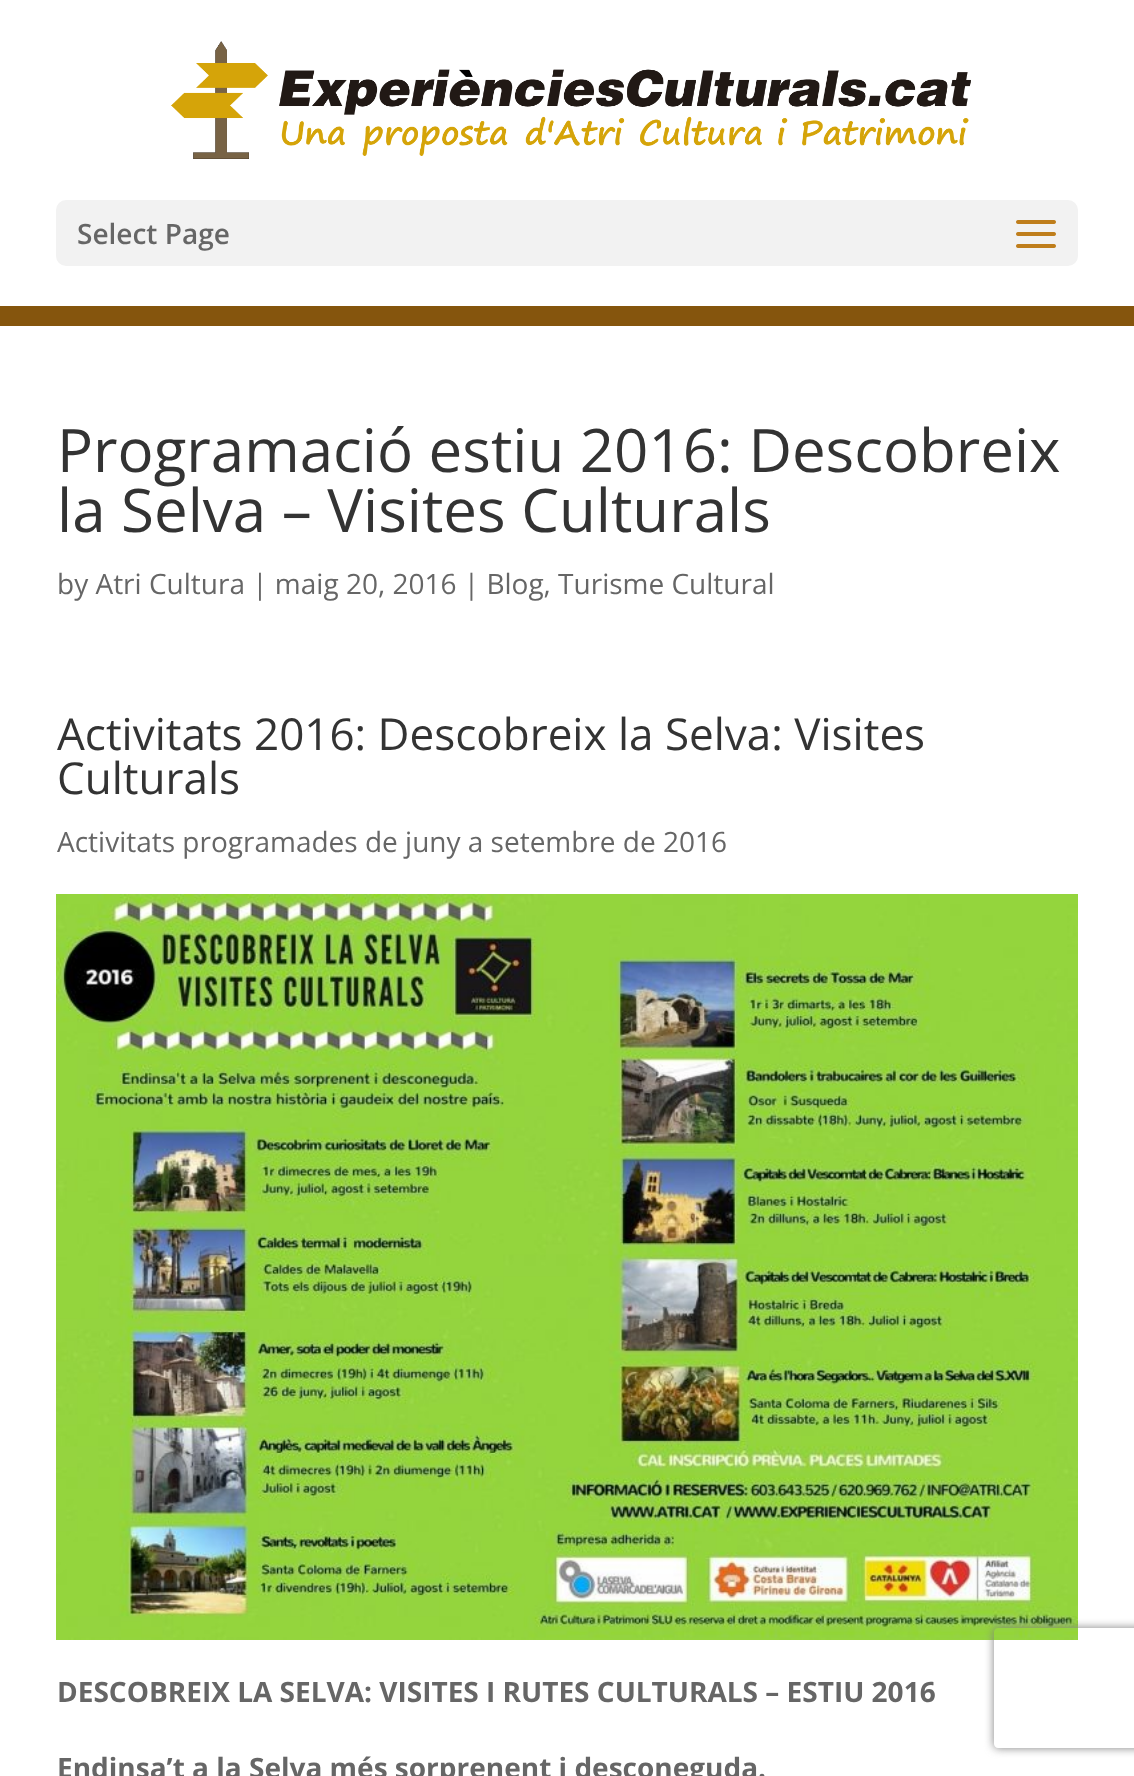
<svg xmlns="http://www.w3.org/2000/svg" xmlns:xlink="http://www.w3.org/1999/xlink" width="1134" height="1776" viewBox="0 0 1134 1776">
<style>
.cls-1{font:600 28px Open Sans;fill:#666666}
.cls-2{font:60px Open Sans;fill:#333333}
.cls-3{font:28px Open Sans;fill:#666666}
.cls-4{font:44px Open Sans;fill:#333333}
.cls-5{font:bold 28px Open Sans;fill:#666666}
</style>
<defs>
<clipPath id="clip1"><path d="M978 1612H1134V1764H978ZM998 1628H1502C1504 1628 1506 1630 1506 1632V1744C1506 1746 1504 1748 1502 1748H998C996 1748 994 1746 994 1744V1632C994 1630 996 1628 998 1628Z" clip-rule="evenodd"/></clipPath>
</defs>
<rect width="100%" height="100%" fill="#ffffff"/>
<rect fill="#85550d" x="0" y="306" width="1134" height="20"/>
<image xlink:href="image0.png" x="171" y="41" width="800" height="118"/>
<rect fill="#f2f2f2" x="56" y="200" width="1022" height="66" rx="10"/>
<image xlink:href="image1.png" x="1016" y="220" width="40" height="28"/>
<image xlink:href="image2.png" x="56" y="894" width="1022" height="746"/>
<g clip-path="url(#clip1)">
<rect fill="#808080" filter="blur(5px)" x="994" y="1628" width="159" height="120" rx="4"/>
</g>
<text class="cls-1" x="77" y="244">Select Page</text>
<text class="cls-2"><tspan x="57" y="472">Programació estiu 2016: Descobreix</tspan><tspan x="57" y="532">la Selva – Visites Culturals</tspan></text>
<text class="cls-3" x="57" y="594">by Atri Cultura | maig 20, 2016 | Blog, Turisme Cultural</text>
<text class="cls-4"><tspan x="57" y="750">Activitats 2016: Descobreix la Selva: Visites</tspan><tspan x="57" y="794">Culturals</tspan></text>
<text class="cls-3" x="57" y="852">Activitats programades de juny a setembre de 2016</text>
<text class="cls-5" x="57" y="1702">DESCOBREIX LA SELVA: VISITES I RUTES CULTURALS – ESTIU 2016</text>
<text class="cls-5" x="57" y="1778">Endinsa’t a la Selva més sorprenent i desconeguda.</text>
</svg>
